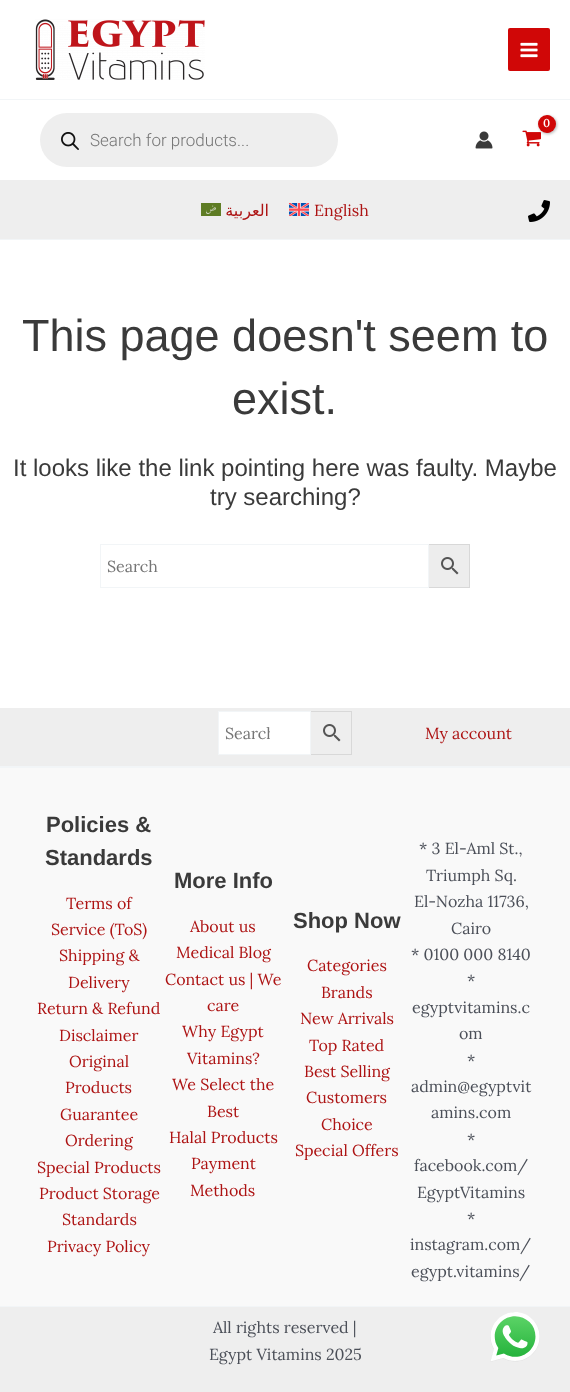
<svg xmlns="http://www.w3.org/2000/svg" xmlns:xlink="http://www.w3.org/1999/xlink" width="570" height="1392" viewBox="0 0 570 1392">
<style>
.cls-1{font:bold 11px Lora;fill:#ffffff}
.cls-2{font:300 17px Roboto;fill:#757575}
.cls-3{font:16px DejaVu Sans;direction:rtl;fill:#ad1313}
.cls-4{font:16px Lora;fill:#ad1313}
.cls-5{font:45px Liberation Sans;fill:#3a3a3a}
.cls-6{font:24px Liberation Sans;fill:#3a3a3a}
.cls-7{font:16px Lora;fill:#757575}
.cls-8{font:bold 22px Liberation Sans;fill:#3a3a3a}
.cls-9{font:16px Lora;fill:#4b4f58}
</style>
<defs>
<clipPath id="clip1"><rect x="225" y="723" width="45" height="20"/></clipPath>
</defs>
<rect width="100%" height="100%" fill="#ffffff"/>
<rect fill="#f2f5f7" x="0" y="99" width="570" height="1"/>
<image xlink:href="image0.png" x="35" y="19" width="170" height="61"/>
<rect fill="#d00707" x="508" y="28" width="42" height="43" rx="2"/>
<image xlink:href="image1.png" x="520" y="42" width="18" height="16"/>
<image xlink:href="image2.png" x="522" y="130" width="19" height="17"/>
<rect fill="#000000" fill-opacity="0.3" filter="blur(1.5px)" x="539" y="116" width="18" height="18" rx="9"/>
<circle fill="#d00707" cx="547" cy="124" r="9"/>
<image xlink:href="image3.png" x="475" y="131" width="18" height="18"/>
<rect fill="#eeeeee" x="40" y="113" width="298" height="54" rx="27"/>
<image xlink:href="image4.png" x="61" y="132" width="18" height="18"/>
<rect fill="#eeeeee" x="0" y="180" width="570" height="59"/>
<rect fill="#f2f5f7" x="0" y="239" width="570" height="1"/>
<image xlink:href="image5.png" x="201" y="203" width="20" height="13"/>
<image xlink:href="image6.png" x="289" y="203" width="20" height="13"/>
<image xlink:href="image7.png" x="528" y="200" width="22" height="22"/>
<rect fill="#ededed" stroke="#d8d8d8" x="428.5" y="544.5" width="41" height="43"/>
<rect fill="none" stroke="#f2f5f7" x="100.5" y="544.5" width="328" height="43"/>
<image xlink:href="image8.png" x="441" y="557" width="18" height="18"/>
<rect fill="#eeeeee" x="0" y="708" width="570" height="58"/>
<rect fill="none" stroke="#d8d8d8" x="310.5" y="711.5" width="41" height="43"/>
<rect fill="#ffffff" stroke="#f2f5f7" x="218.5" y="711.5" width="92" height="43"/>
<image xlink:href="image9.png" x="323" y="724" width="18" height="18"/>
<rect fill="#f9f9f9" x="0" y="768" width="570" height="538"/>
<rect fill="#f2f5f7" x="0" y="766" width="570" height="2"/>
<rect fill="#eeeeee" x="0" y="1307" width="570" height="85"/>
<rect fill="#f2f5f7" x="0" y="1306" width="570" height="1"/>
<image xlink:href="image10.png" x="490" y="1312" width="50" height="50"/>
<text class="cls-1" x="543" y="127">0</text>
<text class="cls-2" x="90" y="146">Search for products...</text>
<text class="cls-3" x="269" y="216">العربية</text>
<text class="cls-4" x="314" y="216">English</text>
<text class="cls-5" x="22" y="351">This page doesn't seem to</text>
<text class="cls-5" x="232" y="414">exist.</text>
<text class="cls-6" x="13" y="476">It looks like the link pointing here was faulty. Maybe</text>
<text class="cls-6" x="210" y="505">try searching?</text>
<text class="cls-7" x="107" y="572">Search</text>
<g clip-path="url(#clip1)">
<text class="cls-7" x="225" y="739">Search</text>
</g>
<text class="cls-4" x="425" y="739">My account</text>
<text class="cls-8" x="46" y="832">Policies &amp;</text>
<text class="cls-8" x="45" y="865">Standards</text>
<text class="cls-4" x="66" y="909">Terms of</text>
<text class="cls-4" x="51" y="935">Service (ToS)</text>
<text class="cls-4" x="59" y="961">Shipping &amp;</text>
<text class="cls-4" x="68" y="988">Delivery</text>
<text class="cls-4" x="37" y="1014">Return &amp; Refund</text>
<text class="cls-4" x="59" y="1041">Disclaimer</text>
<text class="cls-4" x="69" y="1067">Original</text>
<text class="cls-4" x="65" y="1093">Products</text>
<text class="cls-4" x="60" y="1120">Guarantee</text>
<text class="cls-4" x="65" y="1146">Ordering</text>
<text class="cls-4" x="37" y="1173">Special Products</text>
<text class="cls-4" x="39" y="1199">Product Storage</text>
<text class="cls-4" x="62" y="1225">Standards</text>
<text class="cls-4" x="47" y="1252">Privacy Policy</text>
<text class="cls-8" x="174" y="888">More Info</text>
<text class="cls-4" x="190" y="932">About us</text>
<text class="cls-4" x="176" y="958">Medical Blog</text>
<text class="cls-4" x="165" y="985">Contact us | We</text>
<text class="cls-4" x="207" y="1011">care</text>
<text class="cls-4" x="182" y="1037">Why Egypt</text>
<text class="cls-4" x="187" y="1064">Vitamins?</text>
<text class="cls-4" x="172" y="1090">We Select the</text>
<text class="cls-4" x="207" y="1117">Best</text>
<text class="cls-4" x="169" y="1143">Halal Products</text>
<text class="cls-4" x="191" y="1169">Payment</text>
<text class="cls-4" x="190" y="1196">Methods</text>
<text class="cls-8" x="293" y="928">Shop Now</text>
<text class="cls-4" x="307" y="971">Categories</text>
<text class="cls-4" x="321" y="998">Brands</text>
<text class="cls-4" x="300" y="1024">New Arrivals</text>
<text class="cls-4" x="309" y="1051">Top Rated</text>
<text class="cls-4" x="304" y="1077">Best Selling</text>
<text class="cls-4" x="306" y="1103">Customers</text>
<text class="cls-4" x="321" y="1130">Choice</text>
<text class="cls-4" x="295" y="1156">Special Offers</text>
<text class="cls-9" x="419" y="854">* 3 El-Aml St.,</text>
<text class="cls-9" x="426" y="881">Triumph Sq.</text>
<text class="cls-9" x="414" y="907">El-Nozha 11736,</text>
<text class="cls-9" x="451" y="934">Cairo</text>
<text class="cls-9" x="411" y="960">* 0100 000 8140</text>
<text class="cls-9" x="467" y="986">*</text>
<text class="cls-9" x="412" y="1013">egyptvitamins.c</text>
<text class="cls-9" x="459" y="1039">om</text>
<text class="cls-9" x="467" y="1066">*</text>
<text class="cls-9" x="411" y="1092">admin@egyptvit</text>
<text class="cls-9" x="431" y="1118">amins.com</text>
<text class="cls-9" x="467" y="1145">*</text>
<text class="cls-9" x="414" y="1171">facebook.com/</text>
<text class="cls-9" x="417" y="1198">EgyptVitamins</text>
<text class="cls-9" x="467" y="1224">*</text>
<text class="cls-9" x="410" y="1250">instagram.com/</text>
<text class="cls-9" x="411" y="1277">egypt.vitamins/</text>
<text class="cls-9" x="213" y="1333">All rights reserved |</text>
<text class="cls-9" x="209" y="1360">Egypt Vitamins 2025</text>
</svg>
